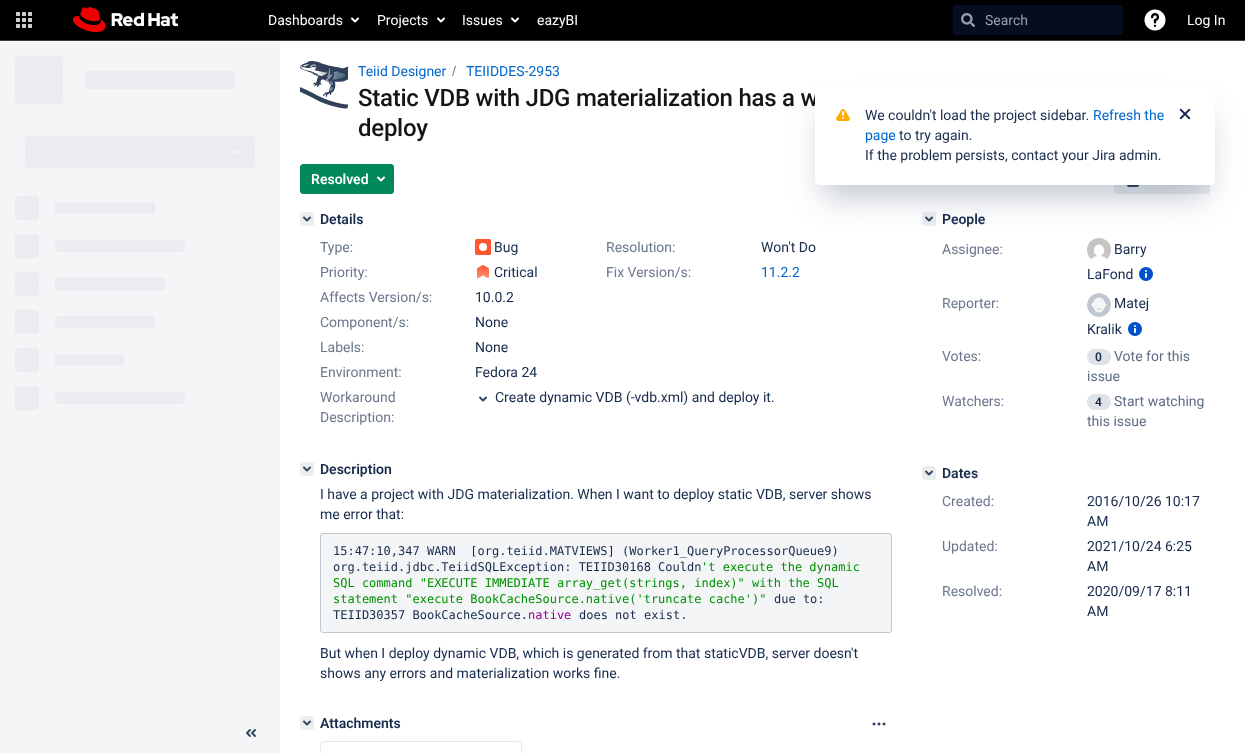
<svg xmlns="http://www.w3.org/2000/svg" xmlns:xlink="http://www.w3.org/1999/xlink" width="1245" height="753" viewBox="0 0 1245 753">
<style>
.cls-1{font:14px Roboto;fill:#ffffff}
.cls-2{font:14px Roboto;fill:#97a0af}
.cls-3{font:14px Roboto;fill:#0066cc}
.cls-4{font:500 24px Roboto;letter-spacing:-0.25px;fill:#151515}
.cls-5{font:600 14px Roboto;fill:#ffffff}
.cls-6{font:600 14px Roboto;fill:#172b4d}
.cls-7{font:14px Roboto;fill:#6b778c}
.cls-8{font:14px Roboto;fill:#172b4d}
.cls-9{font:12px DejaVu Sans Mono;fill:#172b4d}
.cls-10{font:12px DejaVu Sans Mono;fill:#009100}
.cls-11{font:12px DejaVu Sans Mono;fill:#910091}
.cls-12{font:600 12px Roboto;fill:#172b4d}
.cls-13{font:14px Roboto;fill:#5e6c84}
</style>
<rect width="100%" height="100%" fill="#ffffff"/>
<rect fill="#000000" x="0" y="0" width="1245" height="40"/>
<rect fill="#3c3f42" x="0" y="40" width="1245" height="1"/>
<image xlink:href="image0.png" x="16" y="12" width="16" height="16"/>
<image xlink:href="image1.png" x="73" y="7" width="105" height="25"/>
<image xlink:href="image2.png" x="351" y="17" width="8" height="6"/>
<image xlink:href="image2.png" x="437" y="17" width="8" height="6"/>
<image xlink:href="image2.png" x="511" y="17" width="8" height="6"/>
<rect fill="#040e20" x="953" y="5" width="170" height="30" rx="3"/>
<image xlink:href="image3.png" x="961" y="13" width="14" height="14"/>
<image xlink:href="image4.png" x="1144" y="9" width="22" height="22"/>
<rect fill="#f4f5f7" x="0" y="41" width="280" height="712"/>
<image xlink:href="image5.png" x="15" y="56" width="240" height="354"/>
<image xlink:href="image6.png" x="246" y="729" width="10" height="8"/>
<image xlink:href="image7.png" x="300" y="61" width="48" height="48"/>
<path fill="#707070" d="M453 76L456 66H455L452 76Z"/>
<rect fill="#00875a" stroke="#00875a" x="300.5" y="164.5" width="93" height="29" rx="2.5"/>
<image xlink:href="image8.png" x="377" y="176" width="8" height="6"/>
<rect fill="#ebedf0" x="1114" y="164" width="96" height="30" rx="3"/>
<image xlink:href="image9.png" x="1127" y="185" width="12" height="2"/>
<rect fill="#ebedf0" x="300" y="212" width="14" height="14" rx="3"/>
<image xlink:href="image10.png" x="303" y="216" width="8" height="6"/>
<image xlink:href="image11.png" x="475" y="239" width="16" height="16"/>
<image xlink:href="image12.png" x="477" y="265" width="12" height="14"/>
<image xlink:href="image13.png" x="479" y="396" width="8" height="6"/>
<rect fill="#ebedf0" x="300" y="462" width="14" height="14" rx="3"/>
<image xlink:href="image10.png" x="303" y="466" width="8" height="6"/>
<rect fill="#f4f5f7" stroke="#c1c7d0" x="320.5" y="533.5" width="571" height="99" rx="2.5"/>
<rect fill="#ebedf0" x="300" y="716" width="14" height="14" rx="3"/>
<image xlink:href="image10.png" x="303" y="720" width="8" height="6"/>
<image xlink:href="image14.png" x="872" y="722" width="14" height="4"/>
<rect fill="none" stroke="#e9e9e9" x="320.5" y="741.5" width="201" height="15" rx="2.5"/>
<rect fill="#ebedf0" x="922" y="212" width="14" height="14" rx="3"/>
<image xlink:href="image10.png" x="925" y="216" width="8" height="6"/>
<image xlink:href="image15.png" x="1087" y="238" width="24" height="22"/>
<image xlink:href="image16.png" x="1139" y="267" width="14" height="14"/>
<image xlink:href="image17.png" x="1087" y="293" width="24" height="24"/>
<image xlink:href="image16.png" x="1128" y="322" width="14" height="14"/>
<rect fill="#dfe2e6" x="1087" y="349" width="24" height="16" rx="8"/>
<rect fill="#dfe2e6" x="1087" y="394" width="24" height="16" rx="8"/>
<rect fill="#ebedf0" x="922" y="466" width="14" height="14" rx="3"/>
<image xlink:href="image10.png" x="925" y="470" width="8" height="6"/>
<rect fill="#091e42" fill-opacity="0.25" filter="blur(0.5px)" x="815" y="85" width="400" height="100" rx="3"/>
<rect fill="#091e42" fill-opacity="0.25" filter="blur(16px)" x="823" y="113" width="384" height="84"/>
<text class="cls-1" x="268" y="25">Dashboards</text>
<text class="cls-1" x="377" y="25">Projects</text>
<text class="cls-1" x="462" y="25">Issues</text>
<text class="cls-1" x="537" y="25">eazyBI</text>
<text class="cls-2" x="985" y="25">Search</text>
<text class="cls-1" x="1187" y="25">Log In</text>
<text class="cls-3" x="358" y="76">Teiid Designer</text>
<text class="cls-3" x="466" y="76">TEIIDDES-2953</text>
<text class="cls-4"><tspan x="358" y="106">Static VDB with JDG materialization has a w</tspan><tspan x="358" y="136">deploy</tspan></text>
<text class="cls-5" x="311" y="184">Resolved</text>
<text class="cls-6" x="320" y="224">Details</text>
<text class="cls-7" x="320" y="252">Type:</text>
<text class="cls-8" x="494" y="252">Bug</text>
<text class="cls-7" x="606" y="252">Resolution:</text>
<text class="cls-8" x="761" y="252">Won't Do</text>
<text class="cls-7" x="320" y="277">Priority:</text>
<text class="cls-8" x="494" y="277">Critical</text>
<text class="cls-7" x="606" y="277">Fix Version/s:</text>
<text class="cls-3" x="761" y="277">11.2.2</text>
<text class="cls-7" x="320" y="302">Affects Version/s:</text>
<text class="cls-8" x="475" y="302">10.0.2</text>
<text class="cls-7" x="320" y="327">Component/s:</text>
<text class="cls-8" x="475" y="327">None</text>
<text class="cls-7" x="320" y="352">Labels:</text>
<text class="cls-8" x="475" y="352">None</text>
<text class="cls-7" x="320" y="377">Environment:</text>
<text class="cls-8" x="475" y="377">Fedora 24</text>
<text class="cls-7"><tspan x="320" y="402">Workaround</tspan><tspan x="320" y="422">Description:</tspan></text>
<text class="cls-8" x="495" y="402">Create dynamic VDB (-vdb.xml) and deploy it.</text>
<text class="cls-6" x="320" y="474">Description</text>
<text class="cls-8"><tspan x="320" y="499">I have a project with JDG materialization. When I want to deploy static VDB, server shows</tspan><tspan x="320" y="519">me error that:</tspan></text>
<text class="cls-9" xml:space="preserve"><tspan x="333" y="555">15:47:10,347 WARN  [org.teiid.MATVIEWS] (Worker1_QueryProcessorQueue9)</tspan><tspan x="333" y="571">org.teiid.jdbc.TeiidSQLException: TEIID30168 Couldn</tspan></text>
<text class="cls-10" x="701" y="571">'t execute the dynamic</text>
<text class="cls-10"><tspan x="333" y="587">SQL command "EXECUTE IMMEDIATE array_get(strings, index)" with the SQL</tspan><tspan x="333" y="603">statement "execute BookCacheSource.native('truncate cache')"</tspan></text>
<text class="cls-9" x="774" y="603">due to:</text>
<text class="cls-9" x="333" y="619">TEIID30357 BookCacheSource.</text>
<text class="cls-11" x="528" y="619">native</text>
<text class="cls-9" x="579" y="619">does not exist.</text>
<text class="cls-8"><tspan x="320" y="658">But when I deploy dynamic VDB, which is generated from that staticVDB, server doesn't</tspan><tspan x="320" y="678">shows any errors and materialization works fine.</tspan></text>
<text class="cls-6" x="320" y="728">Attachments</text>
<text class="cls-6" x="942" y="224">People</text>
<text class="cls-7" x="942" y="254">Assignee:</text>
<text class="cls-8" x="1114" y="254">Barry</text>
<text class="cls-8" x="1087" y="279">LaFond</text>
<text class="cls-7" x="942" y="308">Reporter:</text>
<text class="cls-8" x="1114" y="308">Matej</text>
<text class="cls-8" x="1087" y="334">Kralik</text>
<text class="cls-7" x="942" y="361">Votes:</text>
<text class="cls-12" x="1095" y="361">0</text>
<text class="cls-13" x="1114" y="361">Vote for this</text>
<text class="cls-13" x="1087" y="381">issue</text>
<text class="cls-7" x="942" y="406">Watchers:</text>
<text class="cls-12" x="1095" y="406">4</text>
<text class="cls-13" x="1114" y="406">Start watching</text>
<text class="cls-13" x="1087" y="426">this issue</text>
<text class="cls-6" x="942" y="478">Dates</text>
<text class="cls-7" x="942" y="506">Created:</text>
<text class="cls-8"><tspan x="1087" y="506">2016/10/26 10:17</tspan><tspan x="1087" y="526">AM</tspan></text>
<text class="cls-7" x="942" y="551">Updated:</text>
<text class="cls-8"><tspan x="1087" y="551">2021/10/24 6:25</tspan><tspan x="1087" y="571">AM</tspan></text>
<text class="cls-7" x="942" y="596">Resolved:</text>
<text class="cls-8"><tspan x="1087" y="596">2020/09/17 8:11</tspan><tspan x="1087" y="616">AM</tspan></text>
<rect fill="#ffffff" x="815" y="85" width="400" height="100" rx="3"/>
<image xlink:href="image18.png" x="836" y="109" width="14" height="12"/>
<text class="cls-8" x="865" y="120">We couldn't load the project sidebar.</text>
<text class="cls-3" x="1093" y="120">Refresh the</text>
<image xlink:href="image19.png" x="1179" y="108" width="12" height="12"/>
<text class="cls-3" x="865" y="140">page</text>
<text class="cls-8" x="899" y="140">to try again.</text>
<text class="cls-8" x="865" y="160">If the problem persists, contact your Jira admin.</text>
</svg>
